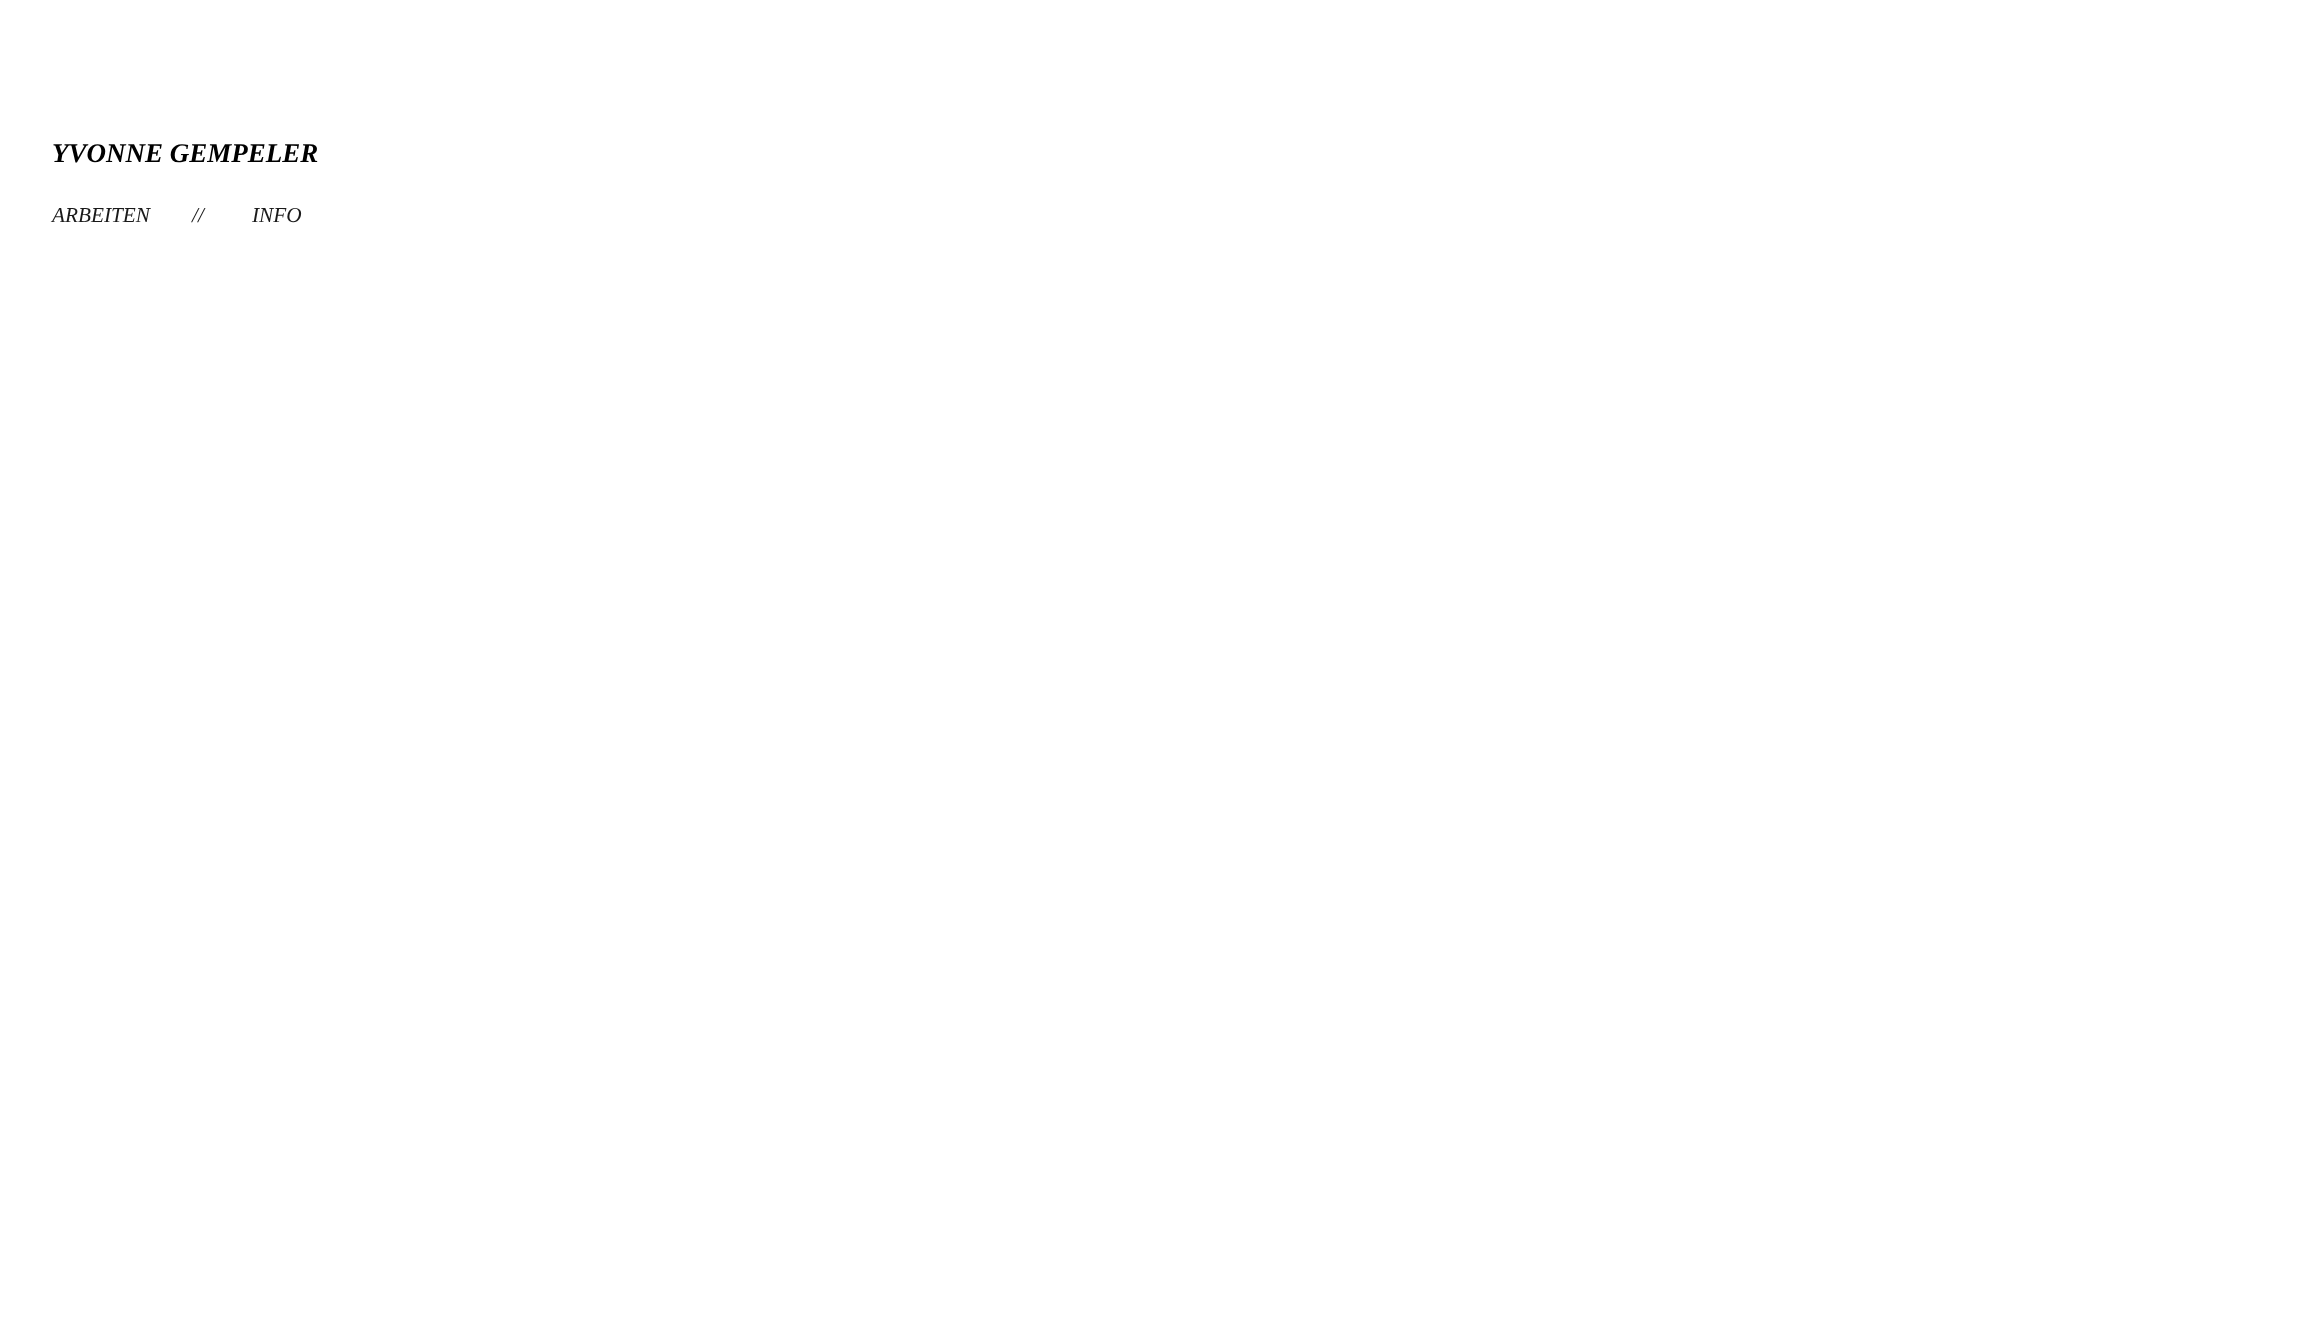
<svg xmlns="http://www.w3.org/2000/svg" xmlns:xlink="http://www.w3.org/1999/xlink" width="2317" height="1339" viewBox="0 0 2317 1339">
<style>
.cls-1{font:italic bold 27px Liberation Serif;fill:#000000}
.cls-2{font:italic 21.25px Liberation Serif;fill:#1a1a1a}
</style>
<rect width="100%" height="100%" fill="#ffffff"/>
<text class="cls-1" x="52" y="162">YVONNE GEMPELER</text>
<text class="cls-2" x="52" y="222">ARBEITEN</text>
<text class="cls-2" x="192" y="222">//</text>
<text class="cls-2" x="252" y="222">INFO</text>
</svg>
